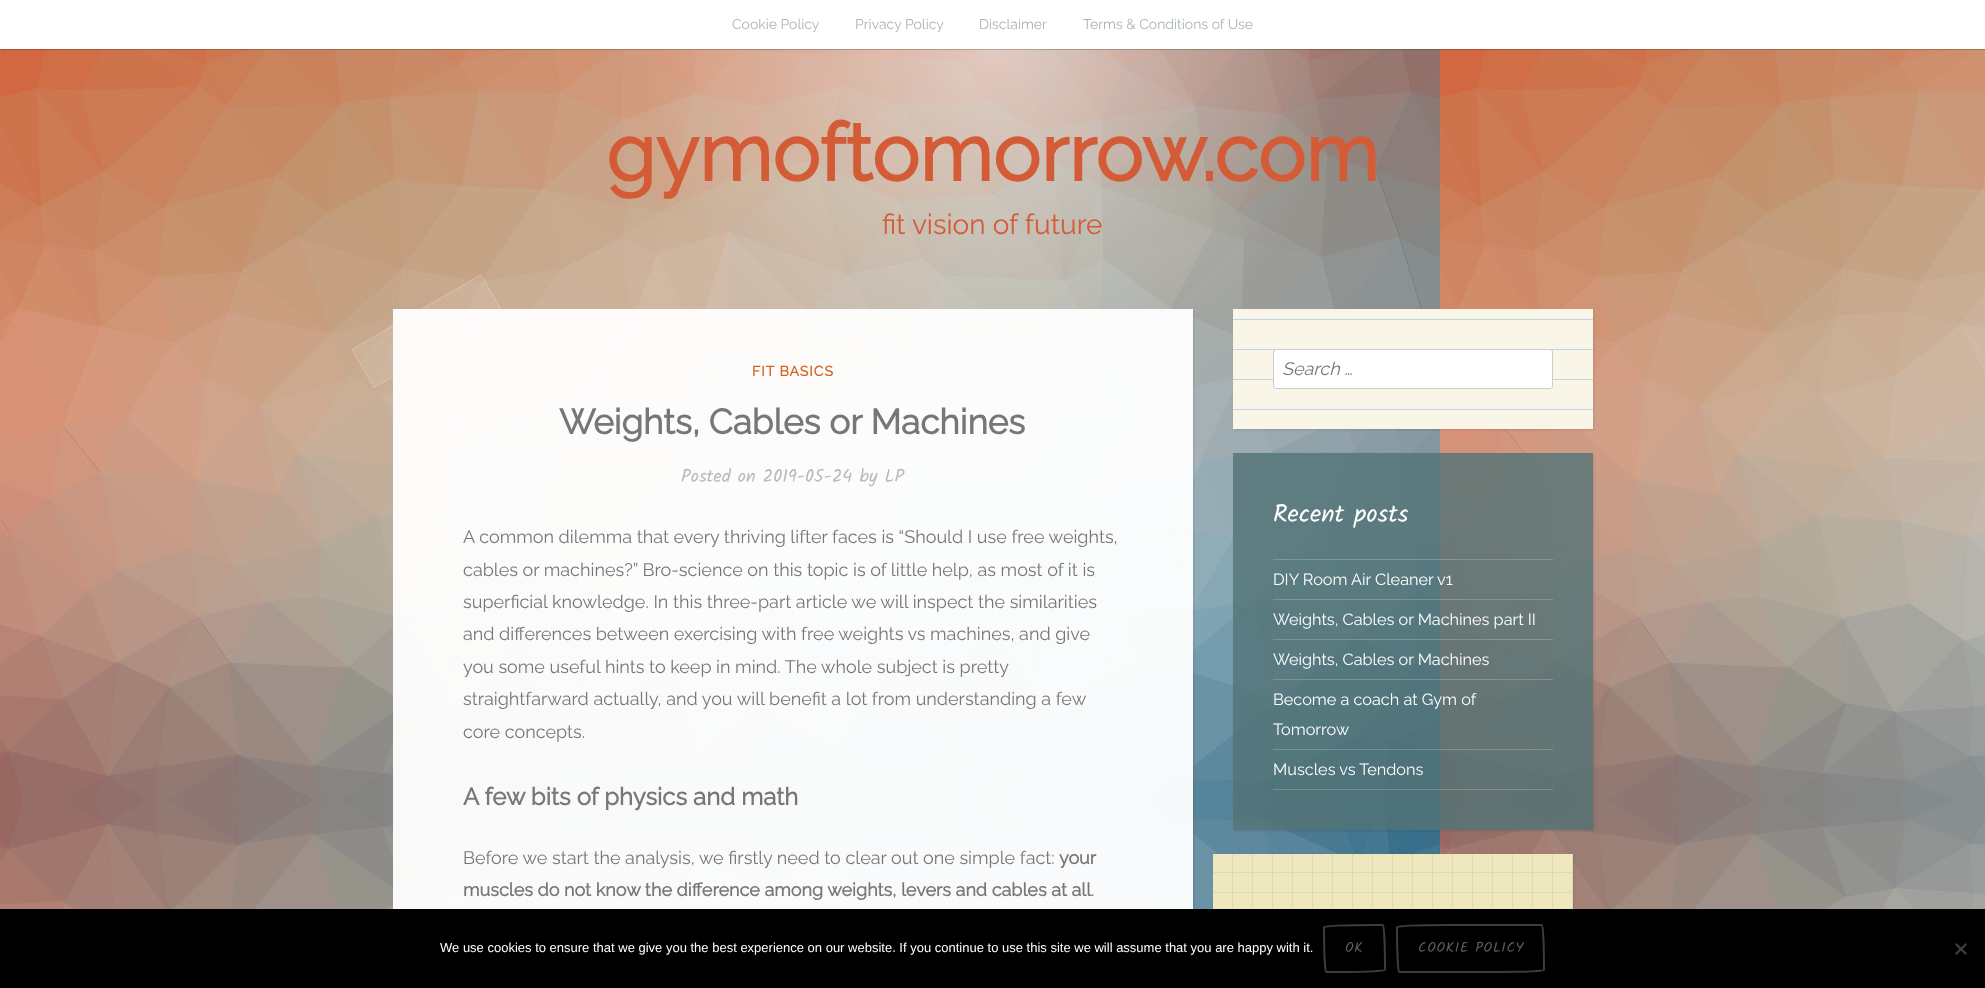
<svg xmlns="http://www.w3.org/2000/svg" xmlns:xlink="http://www.w3.org/1999/xlink" width="1985" height="988" viewBox="0 0 1985 988">
<style>
.cls-1{font:100 14px Raleway;fill:#abb5b6}
.cls-2{font:bold 80px Raleway;fill:#d35c37}
.cls-3{font:100 28px Raleway;fill:#d35c37}
.cls-4{font:bold 14px Raleway;letter-spacing:1px;fill:#d16221}
.cls-5{font:bold 35px Raleway;fill:#777777}
.cls-6{font:18px Kalam;fill:#b9b9b9}
.cls-7{font:100 18px Raleway;fill:#777777}
.cls-8{font:bold 24px Raleway;fill:#777777}
.cls-9{font:bold 18px Raleway;fill:#777777}
.cls-10{font:italic 100 18px Raleway;fill:#777777}
.cls-11{font:25px Kalam;fill:#ffffff}
.cls-12{font:100 16.25px Raleway;fill:#ffffff}
.cls-13{font:13px Liberation Sans;fill:#ffffff}
.cls-14{font:14px Kalam;letter-spacing:0.75px;fill:#5f5f5f}
</style>
<defs>
<clipPath id="clip1"><rect x="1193" y="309" width="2" height="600"/></clipPath>
<clipPath id="clip2"><path d="M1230 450H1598V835H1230ZM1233 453H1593V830H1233Z" clip-rule="evenodd"/></clipPath>
</defs>
<rect width="100%" height="100%" fill="#ffffff"/>
<image xlink:href="image0.png" x="0" y="49" width="1985" height="860"/>
<rect fill="#000000" fill-opacity="0.2" filter="blur(0.5px)" x="1" y="1" width="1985" height="49"/>
<rect fill="#ffffff" x="0" y="0" width="1985" height="49"/>
<g clip-path="url(#clip1)">
<rect fill="#000000" fill-opacity="0.1" filter="blur(1px)" x="394" y="310" width="800" height="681"/>
</g>
<rect fill="#ffffff" fill-opacity="0.95" x="393" y="309" width="800" height="600"/>
<path fill="#ffffff" fill-opacity="0.1" d="M351 349L481 274L504 313L374 388Z"/>
<path fill="none" stroke="#ffffff" stroke-opacity="0.2" d="M352 349.5L481 275L503 313L374 387.5Z"/>
<rect fill="#000000" fill-opacity="0.1" filter="blur(1px)" x="1234" y="310" width="360" height="120"/>
<rect fill="#f9f6e7" x="1233" y="309" width="360" height="120"/>
<rect fill="#bfd4e4" x="1233" y="319" width="360" height="1"/>
<rect fill="#bfd4e4" x="1233" y="349" width="360" height="1"/>
<rect fill="#bfd4e4" x="1233" y="379" width="360" height="1"/>
<rect fill="#bfd4e4" x="1233" y="409" width="360" height="1"/>
<rect fill="#ffffff" stroke="#cccccc" x="1273.5" y="349.5" width="279" height="39" rx="2.5"/>
<g clip-path="url(#clip2)">
<rect fill="#000000" fill-opacity="0.1" filter="blur(1px)" x="1234" y="454" width="360" height="377"/>
</g>
<rect fill="#537375" fill-opacity="0.8" x="1233" y="453" width="360" height="377"/>
<rect fill="#ffffff" fill-opacity="0.2" x="1273" y="789" width="280" height="1"/>
<rect fill="#ffffff" fill-opacity="0.2" x="1273" y="559" width="280" height="1"/>
<rect fill="#ffffff" fill-opacity="0.2" x="1273" y="599" width="280" height="1"/>
<rect fill="#ffffff" fill-opacity="0.2" x="1273" y="639" width="280" height="1"/>
<rect fill="#ffffff" fill-opacity="0.2" x="1273" y="679" width="280" height="1"/>
<rect fill="#ffffff" fill-opacity="0.2" x="1273" y="749" width="280" height="1"/>
<rect fill="#000000" fill-opacity="0.1" filter="blur(1px)" x="1214" y="855" width="360" height="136"/>
<rect fill="#efe8be" x="1213" y="854" width="359" height="55"/>
<rect fill="#dfd9b4" x="1213" y="872" width="360" height="1"/>
<rect fill="#dfd9b4" x="1213" y="892" width="360" height="1"/>
<rect fill="#dfd9b4" x="1232" y="854" width="1" height="55"/>
<rect fill="#dfd9b4" x="1252" y="854" width="1" height="55"/>
<rect fill="#dfd9b4" x="1272" y="854" width="1" height="55"/>
<rect fill="#dfd9b4" x="1292" y="854" width="1" height="55"/>
<rect fill="#dfd9b4" x="1312" y="854" width="1" height="55"/>
<rect fill="#dfd9b4" x="1332" y="854" width="1" height="55"/>
<rect fill="#dfd9b4" x="1352" y="854" width="1" height="55"/>
<rect fill="#dfd9b4" x="1372" y="854" width="1" height="55"/>
<rect fill="#dfd9b4" x="1392" y="854" width="1" height="55"/>
<rect fill="#dfd9b4" x="1412" y="854" width="1" height="55"/>
<rect fill="#dfd9b4" x="1432" y="854" width="1" height="55"/>
<rect fill="#dfd9b4" x="1452" y="854" width="1" height="55"/>
<rect fill="#dfd9b4" x="1472" y="854" width="1" height="55"/>
<rect fill="#dfd9b4" x="1492" y="854" width="1" height="55"/>
<rect fill="#dfd9b4" x="1512" y="854" width="1" height="55"/>
<rect fill="#dfd9b4" x="1532" y="854" width="1" height="55"/>
<rect fill="#dfd9b4" x="1552" y="854" width="1" height="55"/>
<rect fill="#dfd9b4" x="1572" y="854" width="1" height="55"/>
<rect fill="#000000" x="0" y="909" width="1985" height="79"/>
<path fill="none" stroke="#3c3c3c" stroke-width="2" d="M1375 925H1383C1384 925 1385 945 1385 970C1385 971 1365 972 1340 972H1326C1325 972 1324 952 1324 927C1324 926 1347 925 1375 925Z"/>
<path fill="none" stroke="#3c3c3c" stroke-width="2" d="M1448 925H1542C1543 925 1544 945 1544 970C1544 971 1524 972 1499 972H1399C1398 972 1397 952 1397 927C1397 926 1420 925 1448 925Z"/>
<path fill="#404040" d="M1965.5 943L1967 944.5L1956.5 955L1955 953.5Z"/>
<path fill="#404040" d="M1955 944.5L1956.5 943L1967 953.5L1965.5 955Z"/>
<text class="cls-1" x="732" y="29">Cookie Policy</text>
<text class="cls-1" x="855" y="29">Privacy Policy</text>
<text class="cls-1" x="979" y="29">Disclaimer</text>
<text class="cls-1" x="1083" y="29">Terms &amp; Conditions of Use</text>
<text class="cls-2" x="606" y="181">gymoftomorrow.com</text>
<text class="cls-3" x="882" y="234">fit vision of future</text>
<text class="cls-4" x="752" y="376">FIT BASICS</text>
<text class="cls-5" x="559" y="434">Weights, Cables or Machines</text>
<text class="cls-6" x="681" y="482">Posted on 2019-05-24 by LP</text>
<text class="cls-7"><tspan x="463" y="543">A common dilemma that every thriving lifter faces is “Should I use free weights,</tspan><tspan x="463" y="576">cables or machines?” Bro-science on this topic is of little help, as most of it is</tspan><tspan x="463" y="608">superficial knowledge. In this three-part article we will inspect the similarities</tspan><tspan x="463" y="640">and differences between exercising with free weights vs machines, and give</tspan><tspan x="463" y="673">you some useful hints to keep in mind. The whole subject is pretty</tspan><tspan x="463" y="705">straightfarward actually, and you will benefit a lot from understanding a few</tspan><tspan x="463" y="738">core concepts.</tspan></text>
<text class="cls-8" x="463" y="805">A few bits of physics and math</text>
<text class="cls-7" x="463" y="864">Before we start the analysis, we firstly need to clear out one simple fact:</text>
<text class="cls-9" x="1059" y="864">your</text>
<text class="cls-9" x="463" y="896">muscles do not know the difference among weights, levers and cables at all</text>
<text class="cls-7" x="1091" y="896">.</text>
<text class="cls-10" x="1282" y="375">Search …</text>
<text class="cls-11" x="1273" y="522">Recent posts</text>
<text class="cls-12" x="1273" y="585">DIY Room Air Cleaner v1</text>
<text class="cls-12" x="1273" y="625">Weights, Cables or Machines part II</text>
<text class="cls-12" x="1273" y="665">Weights, Cables or Machines</text>
<text class="cls-12"><tspan x="1273" y="705">Become a coach at Gym of</tspan><tspan x="1273" y="735">Tomorrow</tspan></text>
<text class="cls-12" x="1273" y="775">Muscles vs Tendons</text>
<text class="cls-13" x="440" y="952">We use cookies to ensure that we give you the best experience on our website. If you continue to use this site we will assume that you are happy with it.</text>
<text class="cls-14" x="1345" y="952">OK</text>
<text class="cls-14" x="1418" y="952">COOKIE POLICY</text>
</svg>
